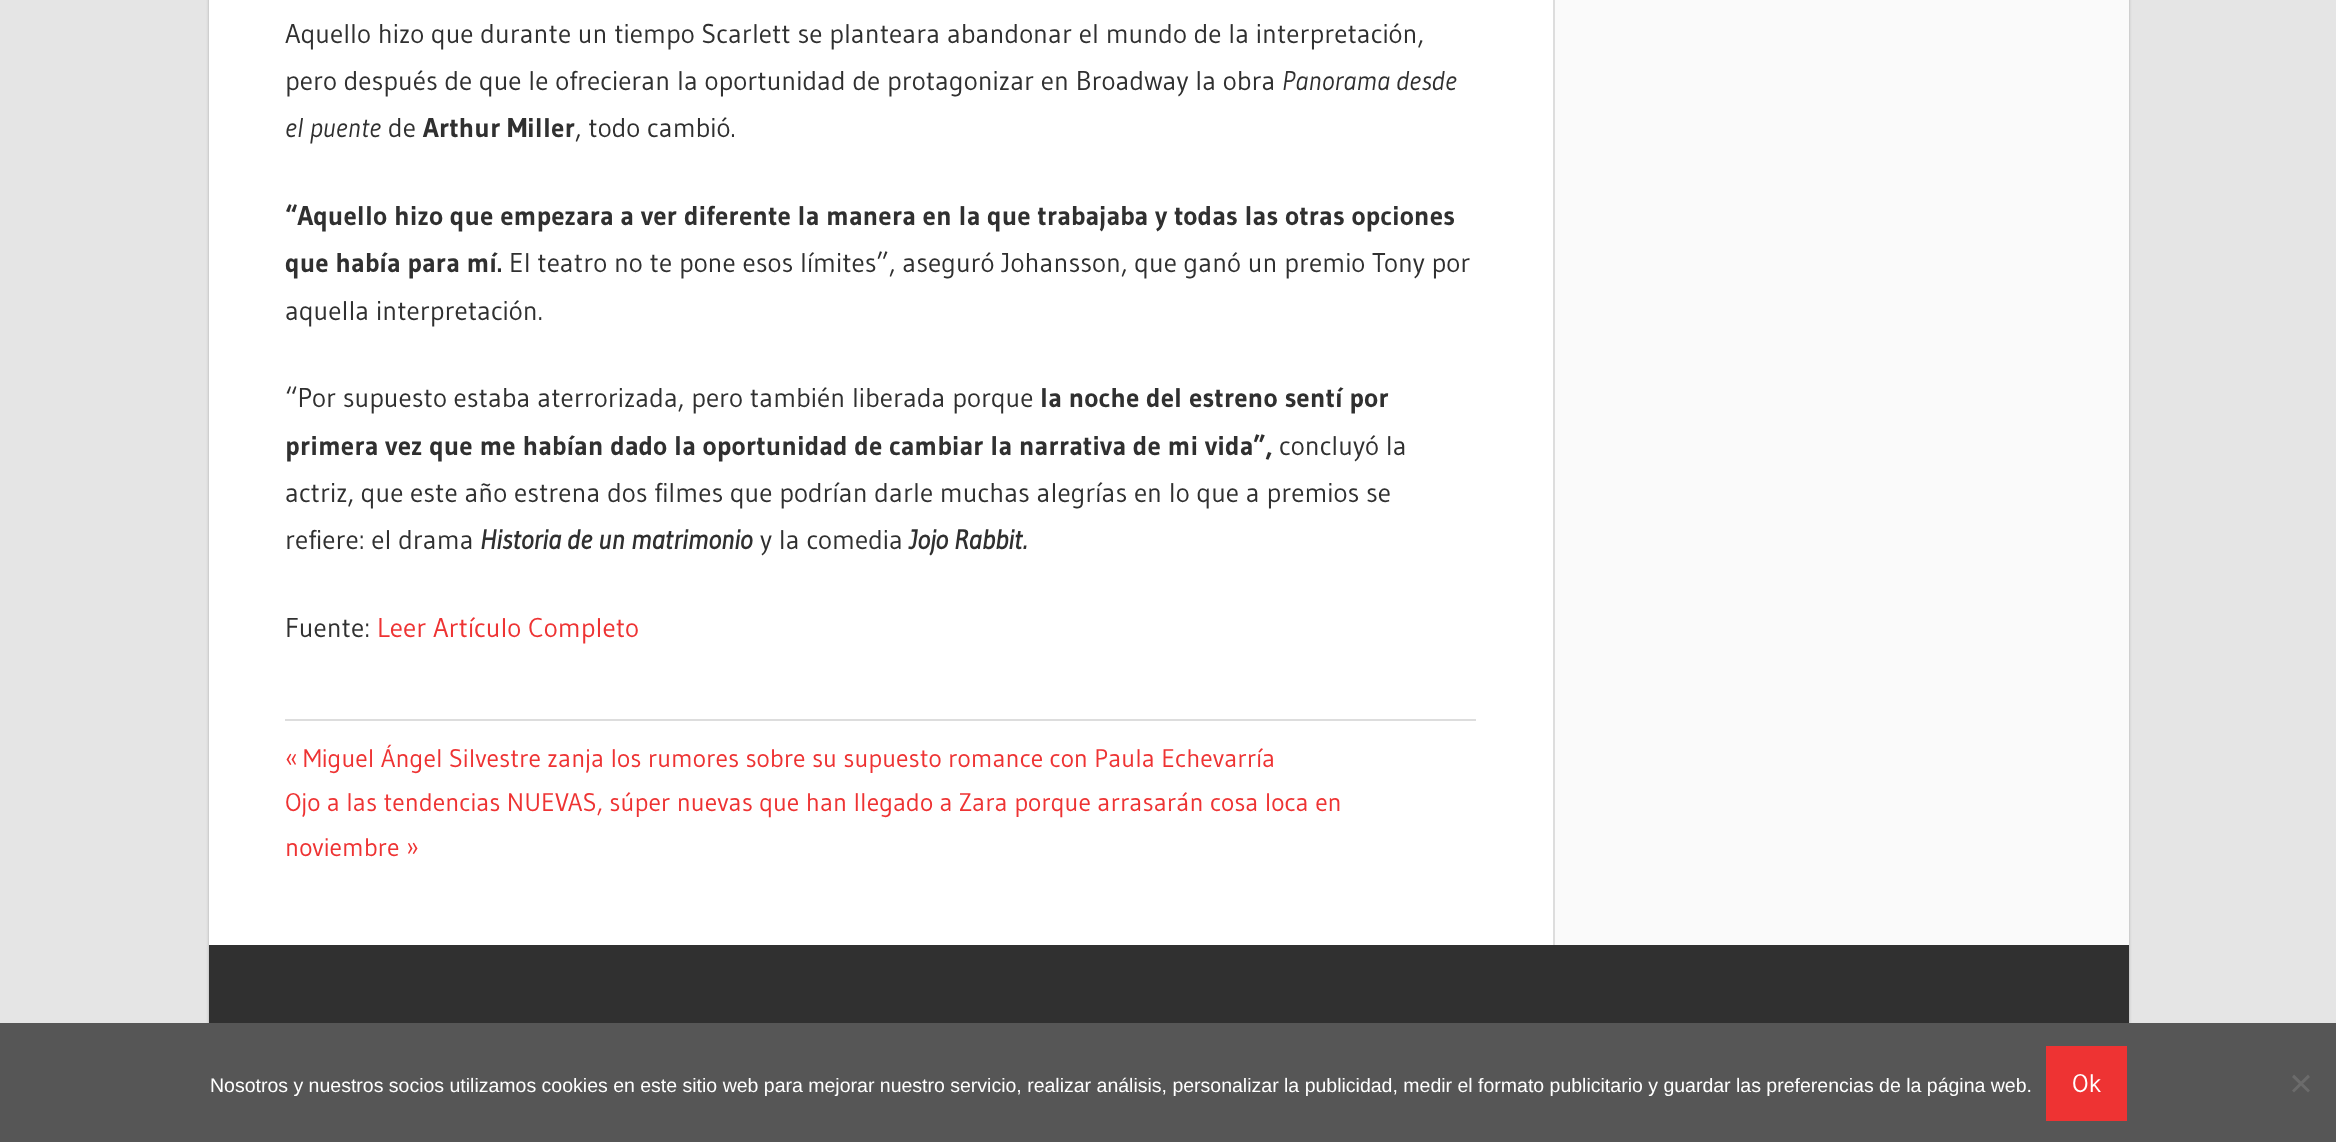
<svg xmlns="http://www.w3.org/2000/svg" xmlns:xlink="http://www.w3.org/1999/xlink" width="2336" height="1142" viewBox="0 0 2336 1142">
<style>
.cls-1{font:27px Gudea;fill:#303030}
.cls-2{font:italic 27px Gudea;fill:#303030}
.cls-3{font:bold 27px Gudea;fill:#303030}
.cls-4{font:italic bold 27px Gudea;fill:#303030}
.cls-5{font:27px Gudea;fill:#ee3333}
.cls-6{font:25.5px Gudea;fill:#ee3333}
.cls-7{font:19.5px Liberation Sans;fill:#ffffff}
.cls-8{font:25.5px Gudea;fill:#ffffff}
</style>
<rect width="100%" height="100%" fill="#e5e5e5"/>
<rect fill="#aaaaaa" filter="blur(1.5px)" x="209" y="-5" width="1920" height="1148"/>
<rect fill="#ffffff" x="209" y="0" width="1344" height="945"/>
<rect fill="#dddddd" x="285" y="719" width="1191" height="2"/>
<rect fill="#fafafa" x="1555" y="0" width="574" height="945"/>
<rect fill="#dddddd" x="1553" y="0" width="2" height="945"/>
<rect fill="#303030" x="209" y="945" width="1920" height="78"/>
<rect fill="#565656" x="0" y="1023" width="2336" height="119"/>
<rect fill="#ee3333" x="2046" y="1046" width="81" height="75"/>
<path fill="#6b6b6b" d="M2308 1074.5L2310 1077L2294 1092.5L2292 1090.5Z"/>
<path fill="#6b6b6b" d="M2292 1077L2294 1074.5L2310 1090.5L2308 1092.5Z"/>
<text class="cls-1"><tspan x="285" y="43">Aquello hizo que durante un tiempo Scarlett se planteara abandonar el mundo de la interpretación,</tspan><tspan x="285" y="90">pero después de que le ofrecieran la oportunidad de protagonizar en Broadway la obra</tspan></text>
<text class="cls-2" x="1282" y="90">Panorama desde</text>
<text class="cls-2" x="285" y="137">el puente</text>
<text class="cls-1" x="388" y="137">de</text>
<text class="cls-3" x="423" y="137">Arthur Miller</text>
<text class="cls-1" x="575" y="137">, todo cambió.</text>
<text class="cls-3"><tspan x="285" y="225">“Aquello hizo que empezara a ver diferente la manera en la que trabajaba y todas las otras opciones</tspan><tspan x="285" y="272">que había para mí.</tspan></text>
<text class="cls-1" x="509" y="272">El teatro no te pone esos límites”, aseguró Johansson, que ganó un premio Tony por</text>
<text class="cls-1" x="285" y="320">aquella interpretación.</text>
<text class="cls-1" x="285" y="407">“Por supuesto estaba aterrorizada, pero también liberada porque</text>
<text class="cls-3" x="1040" y="407">la noche del estreno sentí por</text>
<text class="cls-3" x="285" y="455">primera vez que me habían dado la oportunidad de cambiar la narrativa de mi vida”,</text>
<text class="cls-1" x="1279" y="455">concluyó la</text>
<text class="cls-1"><tspan x="285" y="502">actriz, que este año estrena dos filmes que podrían darle muchas alegrías en lo que a premios se</tspan><tspan x="285" y="549">refiere: el drama</tspan></text>
<text class="cls-4" x="480" y="549">Historia de un matrimonio</text>
<text class="cls-1" x="760" y="549">y la comedia</text>
<text class="cls-4" x="909" y="549">Jojo Rabbit.</text>
<text class="cls-1" x="285" y="637">Fuente:</text>
<text class="cls-5" x="377" y="637">Leer Artículo Completo</text>
<text class="cls-6" x="285" y="767">«</text>
<text class="cls-6" x="303" y="767">Miguel Ángel Silvestre zanja los rumores sobre su supuesto romance con Paula Echevarría</text>
<text class="cls-6"><tspan x="285" y="811">Ojo a las tendencias NUEVAS, súper nuevas que han llegado a Zara porque arrasarán cosa loca en</tspan><tspan x="285" y="856">noviembre</tspan></text>
<text class="cls-6" x="406" y="856">»</text>
<text class="cls-7" x="210" y="1092">Nosotros y nuestros socios utilizamos cookies en este sitio web para mejorar nuestro servicio, realizar análisis, personalizar la publicidad, medir el formato publicitario y guardar las preferencias de la página web.</text>
<text class="cls-8" x="2072" y="1092">Ok</text>
</svg>
